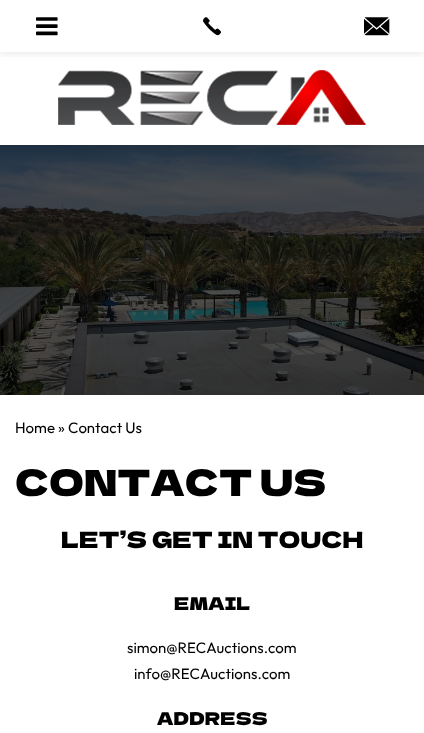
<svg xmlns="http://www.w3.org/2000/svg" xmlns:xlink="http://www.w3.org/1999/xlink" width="424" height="733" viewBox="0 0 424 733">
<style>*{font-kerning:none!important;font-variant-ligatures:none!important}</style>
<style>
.cls-1{font:18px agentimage;fill:#000000}
.cls-2{font:15px Outfit;fill:#000000}
.cls-3{font:36px Dela Gothic One;fill:#000000}
.cls-4{font:22.5px Dela Gothic One;fill:#000000}
.cls-5{font:17.5px Dela Gothic One;fill:#000000}
</style>
<defs>
<clipPath id="clip1"><rect x="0" y="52" width="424" height="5"/></clipPath>
</defs>
<rect width="100%" height="100%" fill="#ffffff"/>
<g clip-path="url(#clip1)">
<rect fill="#000101" fill-opacity="0.09" filter="blur(3.5px)" x="0" y="2" width="424" height="52"/>
</g>
<image xlink:href="image0.png" x="58" y="70" width="308" height="55"/>
<image xlink:href="image1.png" x="0" y="145" width="424" height="250"/>
<text class="cls-1" x="36" y="34">򰁰</text>
<text class="cls-1" x="203" y="34">򰁩</text>
<text class="cls-1" x="364" y="34">򰄢</text>
<text class="cls-2" x="15" y="433">Home » Contact Us</text>
<text class="cls-3" x="15" y="496">CONTACT</text>
<text class="cls-3" x="260" y="496">US</text>
<text class="cls-4" x="61" y="548">LET’S GET IN TOUCH</text>
<text class="cls-5" x="174" y="610">EMAIL</text>
<text class="cls-2" x="127" y="653">simon@RECAuctions.com</text>
<text class="cls-2" x="134" y="679">info@RECAuctions.com</text>
<text class="cls-5" x="157" y="725">ADDRESS</text>
</svg>
